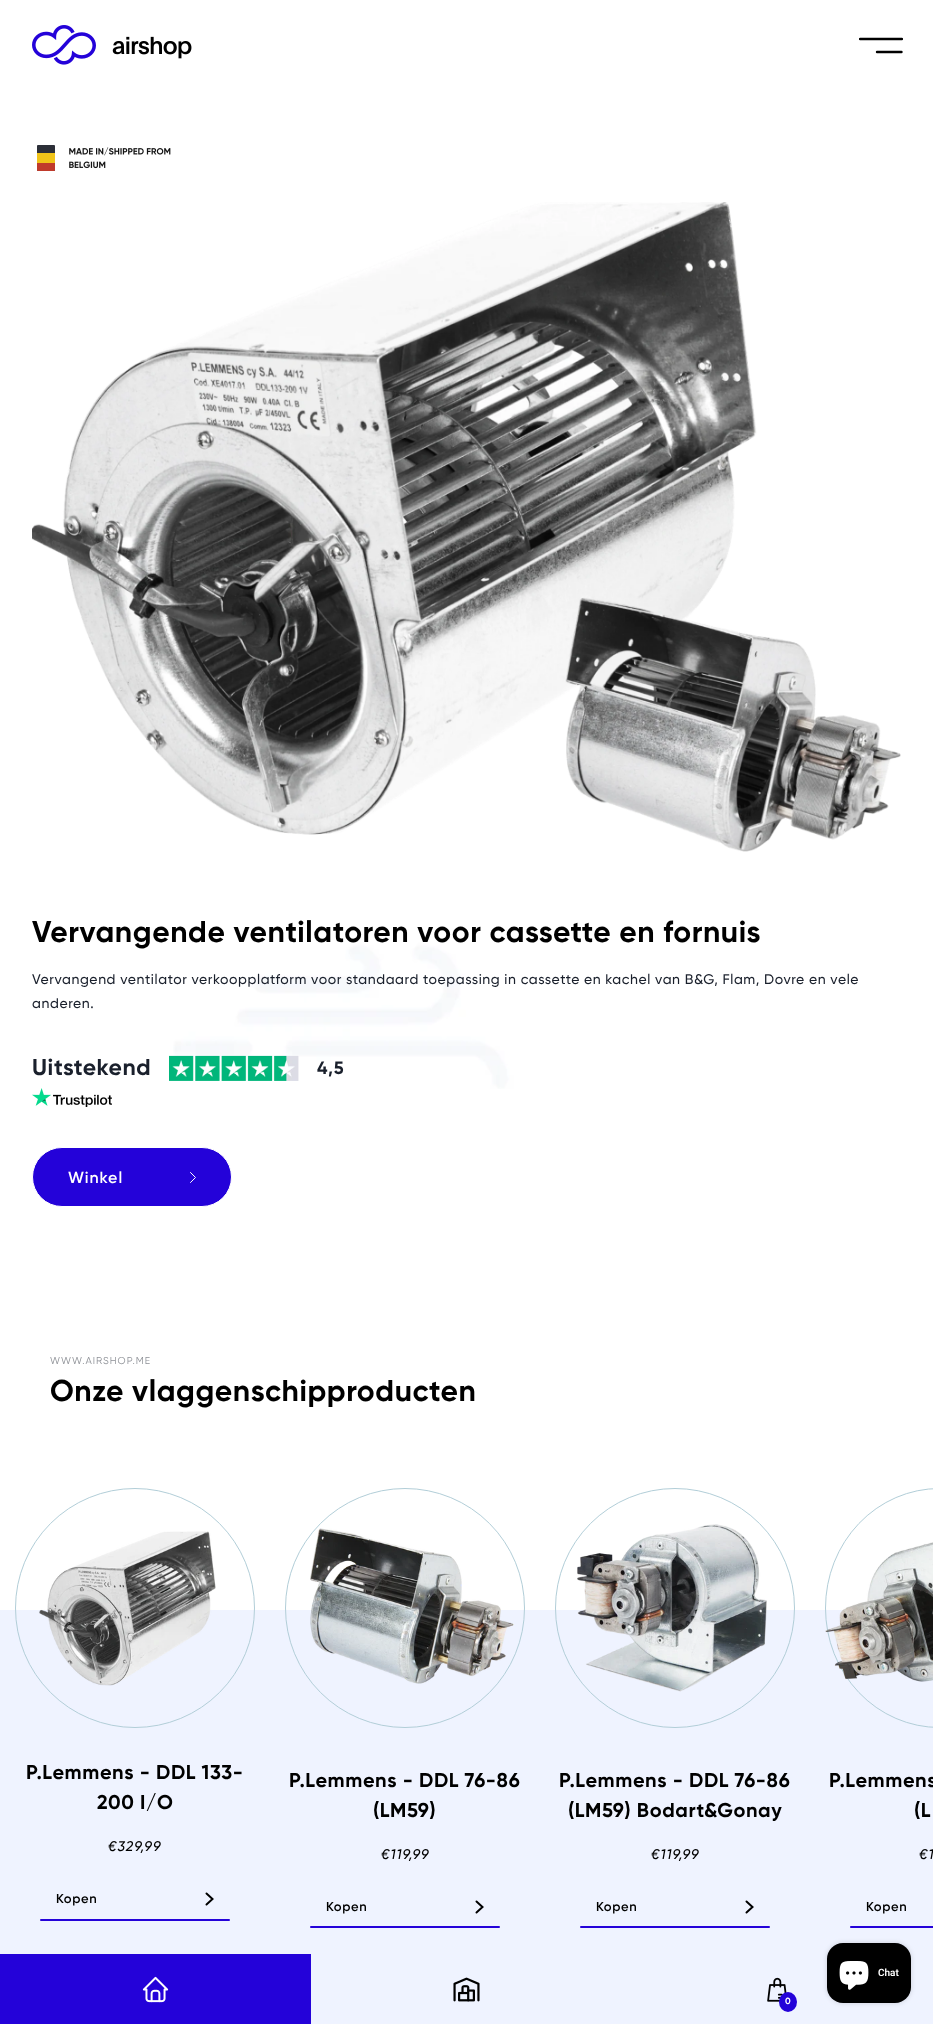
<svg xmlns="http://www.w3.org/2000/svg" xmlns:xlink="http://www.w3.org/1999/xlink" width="933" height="2024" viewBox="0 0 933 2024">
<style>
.cls-1{font:bold 30px Gilroy;letter-spacing:0.6px;fill:#000000}
.cls-2{font:500 14px Gilroy;letter-spacing:0.6px;fill:#1a202c}
.cls-3{font:bold 23px Gilroy;letter-spacing:0.6px;fill:#1a202c}
.cls-4{font:bold 18px Gilroy;letter-spacing:0.6px;fill:#1a202c}
.cls-5{font:600 16px Gilroy;letter-spacing:1px;fill:#ffffff}
.cls-6{font:10px Gilroy;letter-spacing:1px;fill:#8d9096}
.cls-7{font:bold 20px Gilroy;letter-spacing:0.6px;fill:#000000}
.cls-8{font:italic 500 14px Gilroy;letter-spacing:1px;fill:#000000}
.cls-9{font:600 13px Gilroy;letter-spacing:0.6px;fill:#000000}
.cls-10{font:600 10px Roboto;fill:#ffffff}
.cls-11{font:bold 9px Gilroy;letter-spacing:0.6px;fill:#ffffff}
</style>
<defs>
<clipPath id="clip1"><rect x="859" y="37" width="44" height="17"/></clipPath>
</defs>
<rect width="100%" height="100%" fill="#ffffff"/>
<image xlink:href="image0.png" x="173" y="331" width="399" height="758"/>
<image xlink:href="image1.png" x="37" y="145" width="134" height="26"/>
<image xlink:href="image2.png" x="32" y="202" width="869" height="650"/>
<image xlink:href="image3.png" x="169" y="1055" width="130" height="26"/>
<image xlink:href="image4.png" x="32" y="1088" width="80" height="19"/>
<rect fill="#2402d9" stroke="#ffffff" x="32.5" y="1147.5" width="199" height="59" rx="29.5"/>
<path fill="none" stroke="#ffffff" stroke-linecap="round" d="M190.5 1182.5L195.5 1177.5L190.5 1172.5"/>
<rect fill="#eff3ff" x="0" y="1610" width="933" height="344"/>
<circle fill="none" stroke="#b2ced8" cx="135" cy="1608" r="119.5"/>
<image xlink:href="image5.png" x="39" y="1531" width="177" height="155"/>
<path fill="none" stroke="#000000" stroke-width="2" stroke-linecap="round" d="M206.5 1904.5L212.5 1899L206.5 1893.5"/>
<rect fill="#2402d9" x="40" y="1919" width="190" height="2" rx="1"/>
<circle fill="none" stroke="#b2ced8" cx="405" cy="1608" r="119.5"/>
<image xlink:href="image6.png" x="310" y="1528" width="204" height="156"/>
<path fill="none" stroke="#000000" stroke-width="2" stroke-linecap="round" d="M476.5 1912.5L482.5 1907L476.5 1901.5"/>
<rect fill="#2402d9" x="310" y="1926" width="190" height="2" rx="1"/>
<circle fill="none" stroke="#b2ced8" cx="675" cy="1608" r="119.5"/>
<image xlink:href="image7.png" x="577" y="1524" width="190" height="168"/>
<path fill="none" stroke="#000000" stroke-width="2" stroke-linecap="round" d="M746.5 1912.5L752.5 1907L746.5 1901.5"/>
<rect fill="#2402d9" x="580" y="1926" width="190" height="2" rx="1"/>
<rect fill="none" stroke="#b2ced8" x="825.5" y="1488.5" width="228" height="239" rx="119.5"/>
<image xlink:href="image8.png" x="825" y="1542" width="108" height="140"/>
<path fill="#2402d9" d="M851 1926H933V1928H851C850.5 1928 850 1927.5 850 1927C850 1926.5 850.5 1926 851 1926Z"/>
<rect fill="#eff3ff" x="311" y="1954" width="622" height="70"/>
<rect fill="#000000" fill-opacity="0.15" filter="blur(2.5px)" x="827" y="1943" width="84" height="60" rx="16"/>
<rect fill="#000000" x="827" y="1943" width="84" height="60" rx="16"/>
<image xlink:href="image9.png" x="839" y="1961" width="30" height="29"/>
<image xlink:href="image10.png" x="32" y="25" width="160" height="40"/>
<g clip-path="url(#clip1)">
<path fill="none" stroke="#000000" stroke-width="2.4" stroke-linecap="round" d="M860 39H902"/>
</g>
<path fill="none" stroke="#000000" stroke-width="2.4" stroke-linecap="round" d="M877 52H901.5"/>
<rect fill="#2402d9" x="0" y="1954" width="311" height="70"/>
<image xlink:href="image11.png" x="142" y="1976" width="27" height="27"/>
<image xlink:href="image12.png" x="453" y="1977" width="27" height="25"/>
<image xlink:href="image13.png" x="767" y="1977" width="20" height="25"/>
<ellipse fill="#2402d9" cx="788" cy="2002" rx="9" ry="10"/>
<text class="cls-1" x="32" y="942">Vervangende ventilatoren voor cassette en fornuis</text>
<text class="cls-2"><tspan x="32" y="984">Vervangend ventilator verkoopplatform voor standaard toepassing in cassette en kachel van B&amp;G, Flam, Dovre en vele</tspan><tspan x="32" y="1008">anderen.</tspan></text>
<text class="cls-3" x="32" y="1075">Uitstekend</text>
<text class="cls-4" x="317" y="1074">4,5</text>
<text class="cls-5" x="68" y="1183">Winkel</text>
<text class="cls-6" x="50" y="1364">WWW.AIRSHOP.ME</text>
<text class="cls-1" x="50" y="1401">Onze vlaggenschipproducten</text>
<text class="cls-7" x="26" y="1779">P.Lemmens - DDL 133-</text>
<text class="cls-7" x="97" y="1809">200 I/O</text>
<text class="cls-8" x="108" y="1851">€329,99</text>
<text class="cls-9" x="56" y="1903">Kopen</text>
<text class="cls-7" x="289" y="1787">P.Lemmens - DDL 76-86</text>
<text class="cls-7" x="373" y="1817">(LM59)</text>
<text class="cls-8" x="381" y="1859">€119,99</text>
<text class="cls-9" x="326" y="1911">Kopen</text>
<text class="cls-7" x="559" y="1787">P.Lemmens - DDL 76-86</text>
<text class="cls-7" x="568" y="1817">(LM59) Bodart&amp;Gonay</text>
<text class="cls-8" x="651" y="1859">€119,99</text>
<text class="cls-9" x="596" y="1911">Kopen</text>
<text class="cls-7" x="829" y="1787">P.Lemmens</text>
<text class="cls-7" x="914" y="1817">(L</text>
<text class="cls-8" x="919" y="1859">€1</text>
<text class="cls-9" x="866" y="1911">Kopen</text>
<text class="cls-10" x="878" y="1976">Chat</text>
<text class="cls-11" x="785" y="2004">0</text>
</svg>
